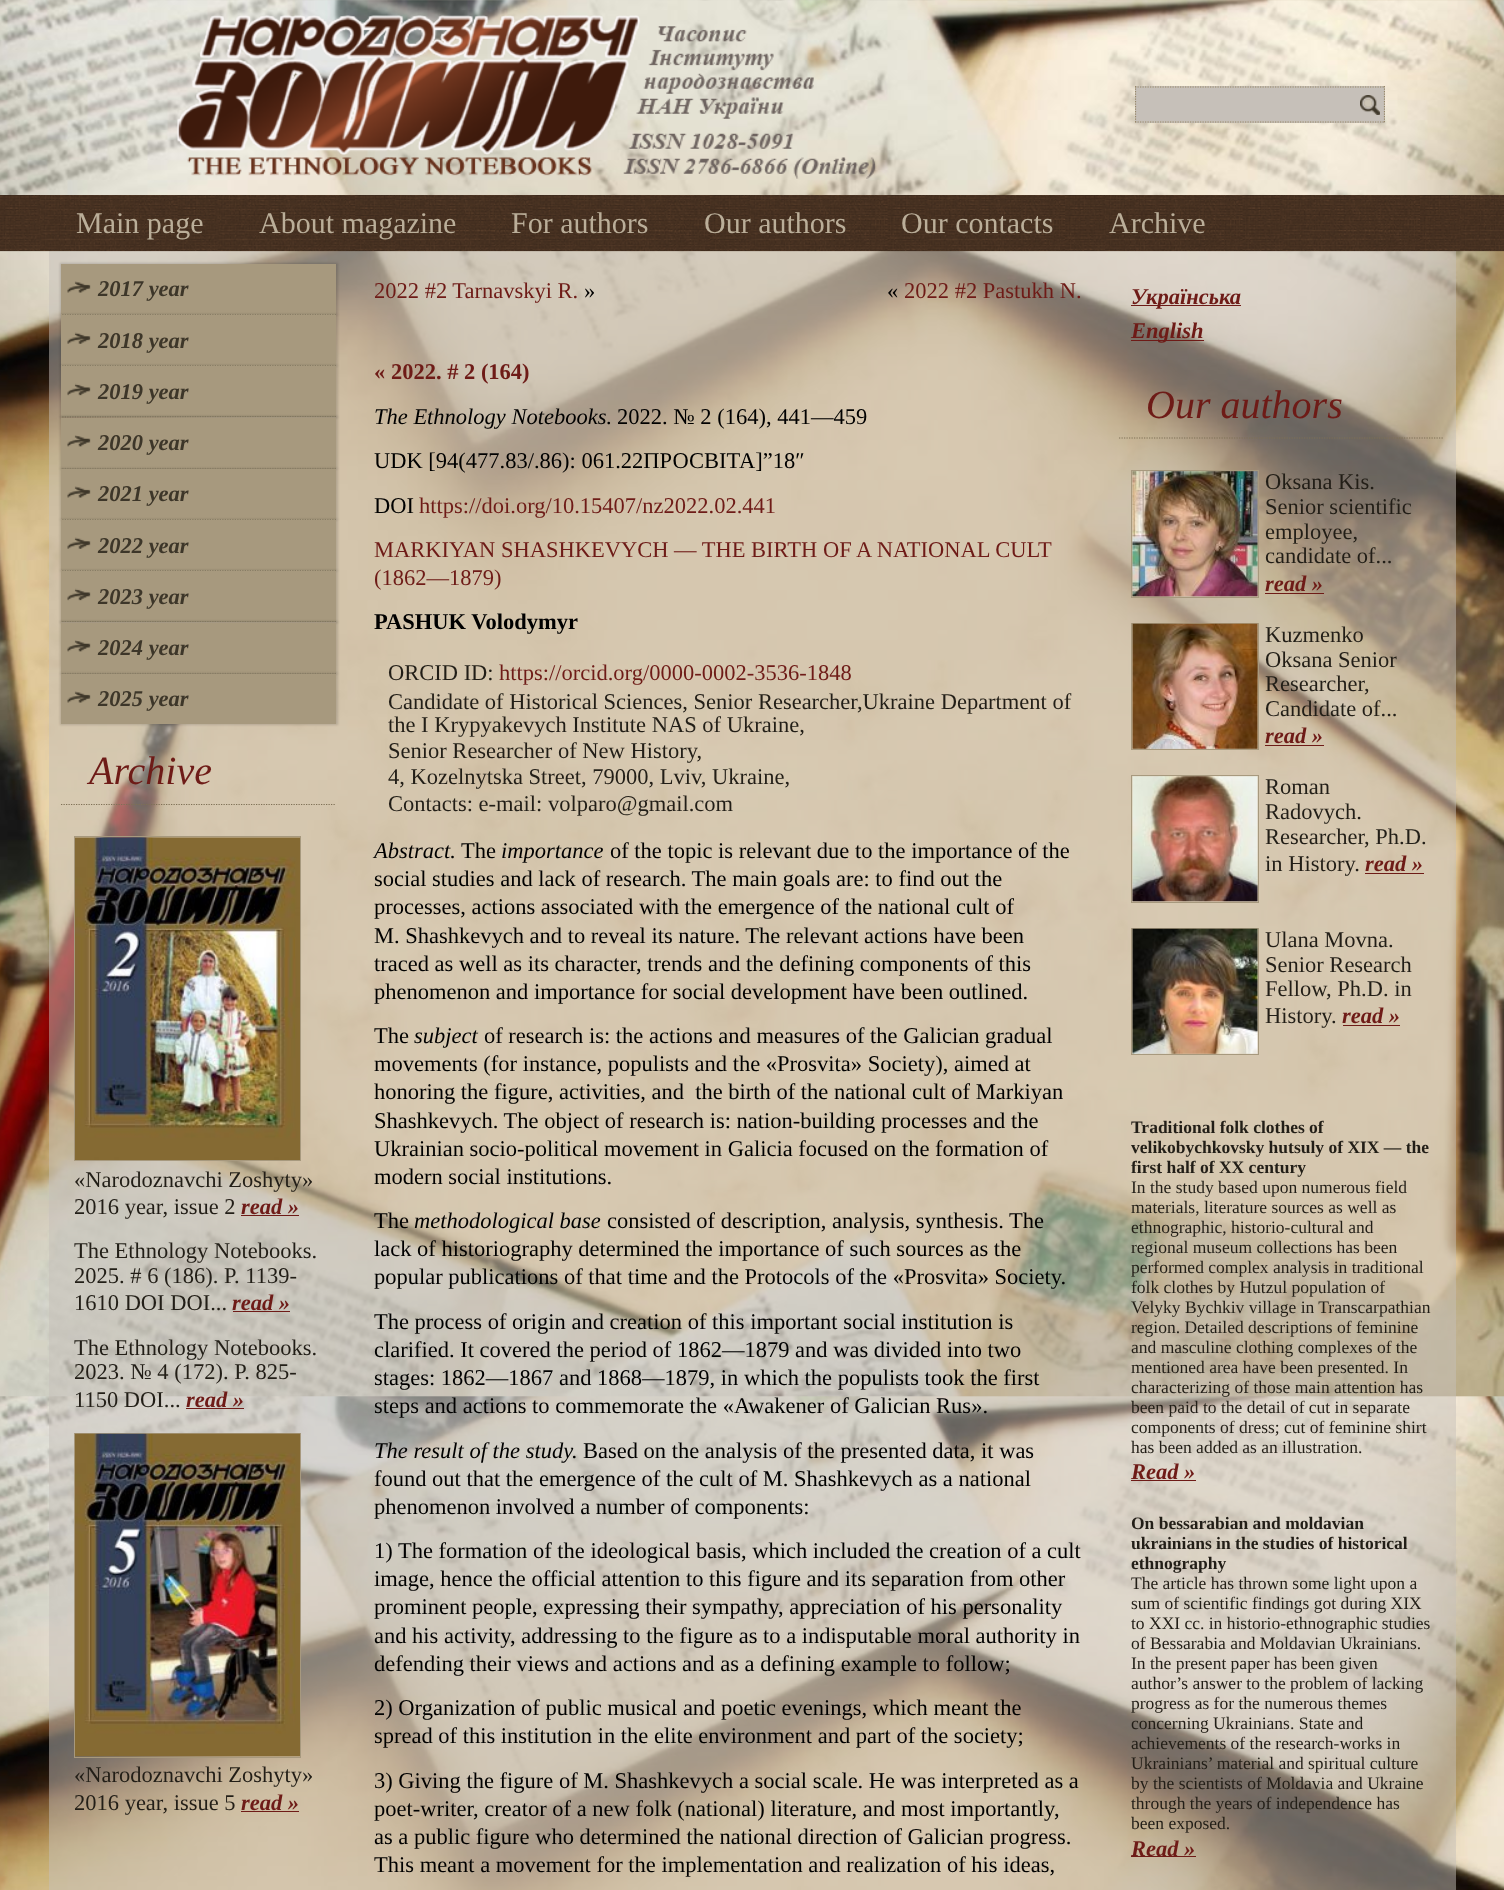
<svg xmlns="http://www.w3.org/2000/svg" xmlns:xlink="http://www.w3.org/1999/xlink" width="1504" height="1890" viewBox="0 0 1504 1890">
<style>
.cls-1{font:30px Liberation Serif;fill:#baae99}
.cls-2{font:italic bold 22.5px Liberation Serif;fill:#3d3629}
.cls-3{font:italic 40px Liberation Serif;fill:#6e1b17}
.cls-4{font:22.5px Liberation Serif;fill:#221e17}
.cls-5{font:italic bold 22.5px Liberation Serif;fill:#6e1b17}
.cls-6{font:22.5px Liberation Serif;fill:#6e1b17}
.cls-7{font:22.5px Liberation Serif;fill:#000000}
.cls-8{font:bold 22.5px Liberation Serif;fill:#6e1b17}
.cls-9{font:italic 22.5px Liberation Serif;fill:#000000}
.cls-10{font:bold 22.5px Liberation Serif;fill:#000000}
.cls-11{font:bold 17.5px Liberation Serif;fill:#221e17}
.cls-12{font:17.5px Liberation Serif;fill:#221e17}
</style>
<defs>
<clipPath id="clip1"><rect x="1135" y="86" width="250" height="38"/></clipPath>
</defs>
<rect width="100%" height="100%" fill="#ffffff"/>
<image xlink:href="image0.png" x="0" y="0" width="1504" height="1890"/>
<image xlink:href="image1.png" x="177" y="15" width="700" height="164"/>
<rect fill="#c6c0b9" x="1135" y="86" width="250" height="37"/>
<path fill="none" stroke="#978666" stroke-width="1.2" stroke-dasharray="1.25 1.25" d="M1135 87H1385"/>
<g clip-path="url(#clip1)">
<path fill="none" stroke="#978666" stroke-width="1.2" stroke-dasharray="1.25 1.25" d="M1384.5 86V122.5"/>
</g>
<path fill="none" stroke="#978666" stroke-width="1.2" stroke-dasharray="1.25 1.25" d="M1135 122H1385"/>
<g clip-path="url(#clip1)">
<path fill="none" stroke="#978666" stroke-width="1.2" stroke-dasharray="1.25 1.25" d="M1135.5 86V122.5"/>
</g>
<image xlink:href="image2.png" x="1360" y="95" width="20" height="20"/>
<rect fill="#4c3524" x="0" y="195" width="1504" height="56"/>
<rect fill="#c6c0b9" fill-opacity="0.5" x="49" y="251" width="1407" height="1639"/>
<image xlink:href="image3.png" x="0" y="195" width="1504" height="57"/>
<rect fill="#a7997e" x="61" y="314" width="275" height="1"/>
<rect fill="#000000" fill-opacity="0.15" filter="blur(1px)" x="60" y="263" width="278" height="52"/>
<rect fill="#a7997e" x="61" y="264" width="275" height="50"/>
<image xlink:href="image4.png" x="67" y="281" width="24" height="12"/>
<rect fill="#a7997e" x="61" y="365" width="275" height="1"/>
<rect fill="#000000" fill-opacity="0.15" filter="blur(1px)" x="60" y="314" width="278" height="52"/>
<rect fill="#a7997e" x="61" y="315" width="275" height="50"/>
<path fill="none" stroke="#a7997e" stroke-width="1.2" stroke-dasharray="1.25 1.25" d="M61 314.5H336"/>
<image xlink:href="image5.png" x="67" y="332" width="24" height="12"/>
<rect fill="#a7997e" x="61" y="416" width="275" height="1"/>
<rect fill="#000000" fill-opacity="0.15" filter="blur(1px)" x="60" y="365" width="278" height="53"/>
<rect fill="#a7997e" x="61" y="366" width="275" height="50"/>
<path fill="none" stroke="#a7997e" stroke-width="1.2" stroke-dasharray="1.25 1.25" d="M61 365.5H336"/>
<image xlink:href="image6.png" x="67" y="383" width="24" height="13"/>
<rect fill="#a7997e" x="61" y="468" width="275" height="1"/>
<rect fill="#000000" fill-opacity="0.15" filter="blur(1px)" x="60" y="416" width="278" height="53"/>
<path fill="none" stroke="#a7997e" stroke-width="1.2" stroke-dasharray="1.25 1.25" d="M61 417H336"/>
<rect fill="#a7997e" x="61" y="418" width="275" height="50"/>
<image xlink:href="image7.png" x="67" y="435" width="24" height="12"/>
<rect fill="#a7997e" x="61" y="519" width="275" height="1"/>
<rect fill="#000000" fill-opacity="0.15" filter="blur(1px)" x="60" y="468" width="278" height="52"/>
<path fill="none" stroke="#a7997e" stroke-width="1.2" stroke-dasharray="1.25 1.25" d="M61 468H336"/>
<rect fill="#a7997e" x="61" y="469" width="275" height="50"/>
<image xlink:href="image4.png" x="67" y="486" width="24" height="12"/>
<rect fill="#a7997e" x="61" y="570" width="275" height="1"/>
<rect fill="#000000" fill-opacity="0.15" filter="blur(1px)" x="60" y="519" width="278" height="52"/>
<rect fill="#a7997e" x="61" y="520" width="275" height="50"/>
<path fill="none" stroke="#a7997e" stroke-width="1.2" stroke-dasharray="1.25 1.25" d="M61 519.5H336"/>
<image xlink:href="image5.png" x="67" y="537" width="24" height="12"/>
<rect fill="#a7997e" x="61" y="621" width="275" height="1"/>
<rect fill="#000000" fill-opacity="0.15" filter="blur(1px)" x="60" y="570" width="278" height="53"/>
<rect fill="#a7997e" x="61" y="571" width="275" height="50"/>
<path fill="none" stroke="#a7997e" stroke-width="1.2" stroke-dasharray="1.25 1.25" d="M61 570.5H336"/>
<image xlink:href="image6.png" x="67" y="588" width="24" height="13"/>
<rect fill="#a7997e" x="61" y="673" width="275" height="1"/>
<rect fill="#000000" fill-opacity="0.15" filter="blur(1px)" x="60" y="621" width="278" height="53"/>
<path fill="none" stroke="#a7997e" stroke-width="1.2" stroke-dasharray="1.25 1.25" d="M61 622H336"/>
<rect fill="#a7997e" x="61" y="623" width="275" height="50"/>
<image xlink:href="image7.png" x="67" y="640" width="24" height="12"/>
<rect fill="#000000" fill-opacity="0.15" filter="blur(1px)" x="60" y="673" width="278" height="52"/>
<path fill="none" stroke="#a7997e" stroke-width="1.2" stroke-dasharray="1.25 1.25" d="M61 673H336"/>
<rect fill="#a7997e" x="61" y="674" width="275" height="50"/>
<image xlink:href="image4.png" x="67" y="691" width="24" height="12"/>
<path fill="none" stroke="#7e7056" stroke-width="1.2" stroke-dasharray="1.25 1.25" d="M61 804.5H336"/>
<rect fill="none" stroke="#a7997e" x="74.5" y="836.5" width="226" height="324"/>
<image xlink:href="image8.png" x="75" y="837" width="225" height="323"/>
<rect fill="#6e1b17" x="241" y="1215" width="58" height="1"/>
<rect fill="#6e1b17" x="233" y="1311" width="57" height="1"/>
<rect fill="#6e1b17" x="186" y="1408" width="58" height="1"/>
<rect fill="none" stroke="#a7997e" x="74.5" y="1433.5" width="226" height="324"/>
<image xlink:href="image9.png" x="75" y="1433" width="225" height="324"/>
<rect fill="#6e1b17" x="241" y="1811" width="58" height="1"/>
<rect fill="#6e1b17" x="1131" y="305" width="110" height="1"/>
<rect fill="#6e1b17" x="1131" y="340" width="73" height="1"/>
<path fill="none" stroke="#7e7056" stroke-width="1.2" stroke-dasharray="1.25 1.25" d="M1119 438H1444"/>
<rect fill="none" stroke="#a7997e" x="1131.5" y="470.5" width="127" height="127"/>
<image xlink:href="image10.png" x="1132" y="471" width="126" height="126"/>
<rect fill="#6e1b17" x="1265" y="593" width="59" height="1"/>
<rect fill="none" stroke="#a7997e" x="1131.5" y="623.5" width="127" height="126"/>
<image xlink:href="image11.png" x="1132" y="623" width="126" height="126"/>
<rect fill="#6e1b17" x="1265" y="745" width="59" height="1"/>
<rect fill="none" stroke="#a7997e" x="1131.5" y="775.5" width="127" height="127"/>
<image xlink:href="image12.png" x="1132" y="776" width="126" height="126"/>
<rect fill="#6e1b17" x="1365" y="873" width="59" height="1"/>
<rect fill="none" stroke="#a7997e" x="1131.5" y="928.5" width="127" height="126"/>
<image xlink:href="image13.png" x="1132" y="928" width="126" height="126"/>
<rect fill="#6e1b17" x="1343" y="1025" width="57" height="1"/>
<rect fill="#6e1b17" x="1131" y="1480" width="65" height="1"/>
<rect fill="#6e1b17" x="1131" y="1856" width="65" height="1"/>
<text class="cls-1" x="76" y="233">Main page</text>
<text class="cls-1" x="259" y="233">About magazine</text>
<text class="cls-1" x="511" y="233">For authors</text>
<text class="cls-1" x="704" y="233">Our authors</text>
<text class="cls-1" x="901" y="233">Our contacts</text>
<text class="cls-1" x="1109" y="233">Archive</text>
<text class="cls-2" x="98" y="296">2017 year</text>
<text class="cls-2" x="98" y="348">2018 year</text>
<text class="cls-2" x="98" y="399">2019 year</text>
<text class="cls-2" x="98" y="450">2020 year</text>
<text class="cls-2" x="98" y="501">2021 year</text>
<text class="cls-2" x="98" y="553">2022 year</text>
<text class="cls-2" x="98" y="604">2023 year</text>
<text class="cls-2" x="98" y="655">2024 year</text>
<text class="cls-2" x="98" y="706">2025 year</text>
<text class="cls-3" x="89" y="784">Archive</text>
<text class="cls-4"><tspan x="74" y="1187">«Narodoznavchi Zoshyty»</tspan><tspan x="74" y="1214">2016 year, issue 2</tspan></text>
<text class="cls-5" x="241" y="1214">read »</text>
<text class="cls-4"><tspan x="74" y="1258">The Ethnology Notebooks.</tspan><tspan x="74" y="1283">2025. # 6 (186). P. 1139-</tspan><tspan x="74" y="1310">1610 DOI DOI...</tspan></text>
<text class="cls-5" x="232" y="1310">read »</text>
<text class="cls-4"><tspan x="74" y="1355">The Ethnology Notebooks.</tspan><tspan x="74" y="1379">2023. № 4 (172). P. 825-</tspan><tspan x="74" y="1407">1150 DOI...</tspan></text>
<text class="cls-5" x="186" y="1407">read »</text>
<text class="cls-4"><tspan x="74" y="1782">«Narodoznavchi Zoshyty»</tspan><tspan x="74" y="1810">2016 year, issue 5</tspan></text>
<text class="cls-5" x="241" y="1810">read »</text>
<text class="cls-6" x="374" y="298">2022 #2 Tarnavskyi R.</text>
<text class="cls-7" x="584" y="298">»</text>
<text class="cls-7" x="887" y="298">«</text>
<text class="cls-6" x="904" y="298">2022 #2 Pastukh N.</text>
<text class="cls-8" x="374" y="379">« 2022. # 2 (164)</text>
<text class="cls-9" x="374" y="424">The Ethnology Notebooks.</text>
<text class="cls-7" x="617" y="424">2022. № 2 (164), 441—459</text>
<text class="cls-7" x="374" y="468">UDK [94(477.83/.86): 061.22ПРОСВІТА]”18″</text>
<text class="cls-7" x="374" y="513">DOI</text>
<text class="cls-6" x="419" y="513">https://doi.org/10.15407/nz2022.02.441</text>
<text class="cls-6"><tspan x="374" y="557">MARKIYAN SHASHKEVYCH — THE BIRTH OF A NATIONAL CULT</tspan><tspan x="374" y="585">(1862—1879)</tspan></text>
<text class="cls-10" x="374" y="629">PASHUK Volodymyr</text>
<text class="cls-4" x="388" y="680">ORCID ID:</text>
<text class="cls-6" x="499" y="680">https://orcid.org/0000-0002-3536-1848</text>
<text class="cls-4"><tspan x="388" y="709">Candidate of Historical Sciences, Senior Researcher,Ukraine Department of</tspan><tspan x="388" y="732">the I Krypyakevych Institute NAS of Ukraine,</tspan><tspan x="388" y="758">Senior Researcher of New History,</tspan><tspan x="388" y="784">4, Kozelnytska Street, 79000, Lviv, Ukraine,</tspan><tspan x="388" y="811">Contacts: e-mail: volparo@gmail.com</tspan></text>
<text class="cls-9" x="374" y="858">Abstract.</text>
<text class="cls-7" x="461" y="858">The</text>
<text class="cls-9" x="501" y="858">importance</text>
<text class="cls-7" x="610" y="858">of the topic is relevant due to the importance of the</text>
<text class="cls-7"><tspan x="374" y="886">social studies and lack of research. The main goals are: to find out the</tspan><tspan x="374" y="914">processes, actions associated with the emergence of the national cult of</tspan><tspan x="374" y="943">M. Shashkevych and to reveal its nature. The relevant actions have been</tspan><tspan x="374" y="971">traced as well as its character, trends and the defining components of this</tspan><tspan x="374" y="999">phenomenon and importance for social development have been outlined.</tspan><tspan x="374" y="1043">The</tspan></text>
<text class="cls-9" x="414" y="1043">subject</text>
<text class="cls-7" x="484" y="1043">of research is: the actions and measures of the Galician gradual</text>
<text class="cls-7" xml:space="preserve"><tspan x="374" y="1071">movements (for instance, populists and the «Prosvita» Society), aimed at</tspan><tspan x="374" y="1099">honoring the figure, activities, and  the birth of the national cult of Markiyan</tspan><tspan x="374" y="1128">Shashkevych. The object of research is: nation-building processes and the</tspan><tspan x="374" y="1156">Ukrainian socio-political movement in Galicia focused on the formation of</tspan><tspan x="374" y="1184">modern social institutions.</tspan><tspan x="374" y="1228">The</tspan></text>
<text class="cls-9" x="414" y="1228">methodological base</text>
<text class="cls-7" x="607" y="1228">consisted of description, analysis, synthesis. The</text>
<text class="cls-7"><tspan x="374" y="1256">lack of historiography determined the importance of such sources as the</tspan><tspan x="374" y="1284">popular publications of that time and the Protocols of the «Prosvita» Society.</tspan></text>
<text class="cls-7"><tspan x="374" y="1329">The process of origin and creation of this important social institution is</tspan><tspan x="374" y="1357">clarified. It covered the period of 1862—1879 and was divided into two</tspan><tspan x="374" y="1385">stages: 1862—1867 and 1868—1879, in which the populists took the first</tspan><tspan x="374" y="1413">steps and actions to commemorate the «Awakener of Galician Rus».</tspan></text>
<text class="cls-9" x="374" y="1458">The result of the study.</text>
<text class="cls-7" x="583" y="1458">Based on the analysis of the presented data, it was</text>
<text class="cls-7"><tspan x="374" y="1486">found out that the emergence of the cult of M. Shashkevych as a national</tspan><tspan x="374" y="1514">phenomenon involved a number of components:</tspan><tspan x="374" y="1558">1) The formation of the ideological basis, which included the creation of a cult</tspan><tspan x="374" y="1586">image, hence the official attention to this figure and its separation from other</tspan><tspan x="374" y="1614">prominent people, expressing their sympathy, appreciation of his personality</tspan><tspan x="374" y="1643">and his activity, addressing to the figure as to a indisputable moral authority in</tspan><tspan x="374" y="1671">defending their views and actions and as a defining example to follow;</tspan><tspan x="374" y="1715">2) Organization of public musical and poetic evenings, which meant the</tspan><tspan x="374" y="1743">spread of this institution in the elite environment and part of the society;</tspan></text>
<text class="cls-7"><tspan x="374" y="1788">3) Giving the figure of M. Shashkevych a social scale. He was interpreted as a</tspan><tspan x="374" y="1816">poet-writer, creator of a new folk (national) literature, and most importantly,</tspan><tspan x="374" y="1844">as a public figure who determined the national direction of Galician progress.</tspan><tspan x="374" y="1872">This meant a movement for the implementation and realization of his ideas,</tspan></text>
<text class="cls-5"><tspan x="1131" y="304">Українська</tspan><tspan x="1131" y="338">English</tspan></text>
<text class="cls-3" x="1146" y="418">Our authors</text>
<text class="cls-4"><tspan x="1265" y="489">Oksana Kis.</tspan><tspan x="1265" y="514">Senior scientific</tspan><tspan x="1265" y="539">employee,</tspan><tspan x="1265" y="563">candidate of...</tspan></text>
<text class="cls-5" x="1265" y="591">read »</text>
<text class="cls-4"><tspan x="1265" y="642">Kuzmenko</tspan><tspan x="1265" y="667">Oksana Senior</tspan><tspan x="1265" y="691">Researcher,</tspan><tspan x="1265" y="716">Candidate of...</tspan></text>
<text class="cls-5" x="1265" y="743">read »</text>
<text class="cls-4"><tspan x="1265" y="794">Roman</tspan><tspan x="1265" y="819">Radovych.</tspan><tspan x="1265" y="844">Researcher, Ph.D.</tspan><tspan x="1265" y="871">in History.</tspan></text>
<text class="cls-5" x="1365" y="871">read »</text>
<text class="cls-4"><tspan x="1265" y="947">Ulana Movna.</tspan><tspan x="1265" y="972">Senior Research</tspan><tspan x="1265" y="996">Fellow, Ph.D. in</tspan><tspan x="1265" y="1023">History.</tspan></text>
<text class="cls-5" x="1342" y="1023">read »</text>
<text class="cls-11"><tspan x="1131" y="1133">Traditional folk clothes of</tspan><tspan x="1131" y="1153">velikobychkovsky hutsuly of XIX — the</tspan><tspan x="1131" y="1173">first half of XX century</tspan></text>
<text class="cls-12"><tspan x="1131" y="1193">In the study based upon numerous field</tspan><tspan x="1131" y="1213">materials, literature sources as well as</tspan><tspan x="1131" y="1233">ethnographic, historio-cultural and</tspan><tspan x="1131" y="1253">regional museum collections has been</tspan><tspan x="1131" y="1273">performed complex analysis in traditional</tspan><tspan x="1131" y="1293">folk clothes by Hutzul population of</tspan><tspan x="1131" y="1313">Velyky Bychkiv village in Transcarpathian</tspan><tspan x="1131" y="1333">region. Detailed descriptions of feminine</tspan><tspan x="1131" y="1353">and masculine clothing complexes of the</tspan><tspan x="1131" y="1373">mentioned area have been presented. In</tspan><tspan x="1131" y="1393">characterizing of those main attention has</tspan><tspan x="1131" y="1413">been paid to the detail of cut in separate</tspan><tspan x="1131" y="1433">components of dress; cut of feminine shirt</tspan><tspan x="1131" y="1453">has been added as an illustration.</tspan></text>
<text class="cls-5" x="1131" y="1479">Read »</text>
<text class="cls-11"><tspan x="1131" y="1529">On bessarabian and moldavian</tspan><tspan x="1131" y="1549">ukrainians in the studies of historical</tspan><tspan x="1131" y="1569">ethnography</tspan></text>
<text class="cls-12"><tspan x="1131" y="1589">The article has thrown some light upon a</tspan><tspan x="1131" y="1609">sum of scientific findings got during XIX</tspan><tspan x="1131" y="1629">to XXI cc. in historio-ethnographic studies</tspan><tspan x="1131" y="1649">of Bessarabia and Moldavian Ukrainians.</tspan><tspan x="1131" y="1669">In the present paper has been given</tspan><tspan x="1131" y="1689">author’s answer to the problem of lacking</tspan><tspan x="1131" y="1709">progress as for the numerous themes</tspan><tspan x="1131" y="1729">concerning Ukrainians. State and</tspan><tspan x="1131" y="1749">achievements of the research-works in</tspan><tspan x="1131" y="1769">Ukrainians’ material and spiritual culture</tspan><tspan x="1131" y="1789">by the scientists of Moldavia and Ukraine</tspan><tspan x="1131" y="1809">through the years of independence has</tspan><tspan x="1131" y="1829">been exposed.</tspan></text>
<text class="cls-5" x="1131" y="1856">Read »</text>
</svg>
